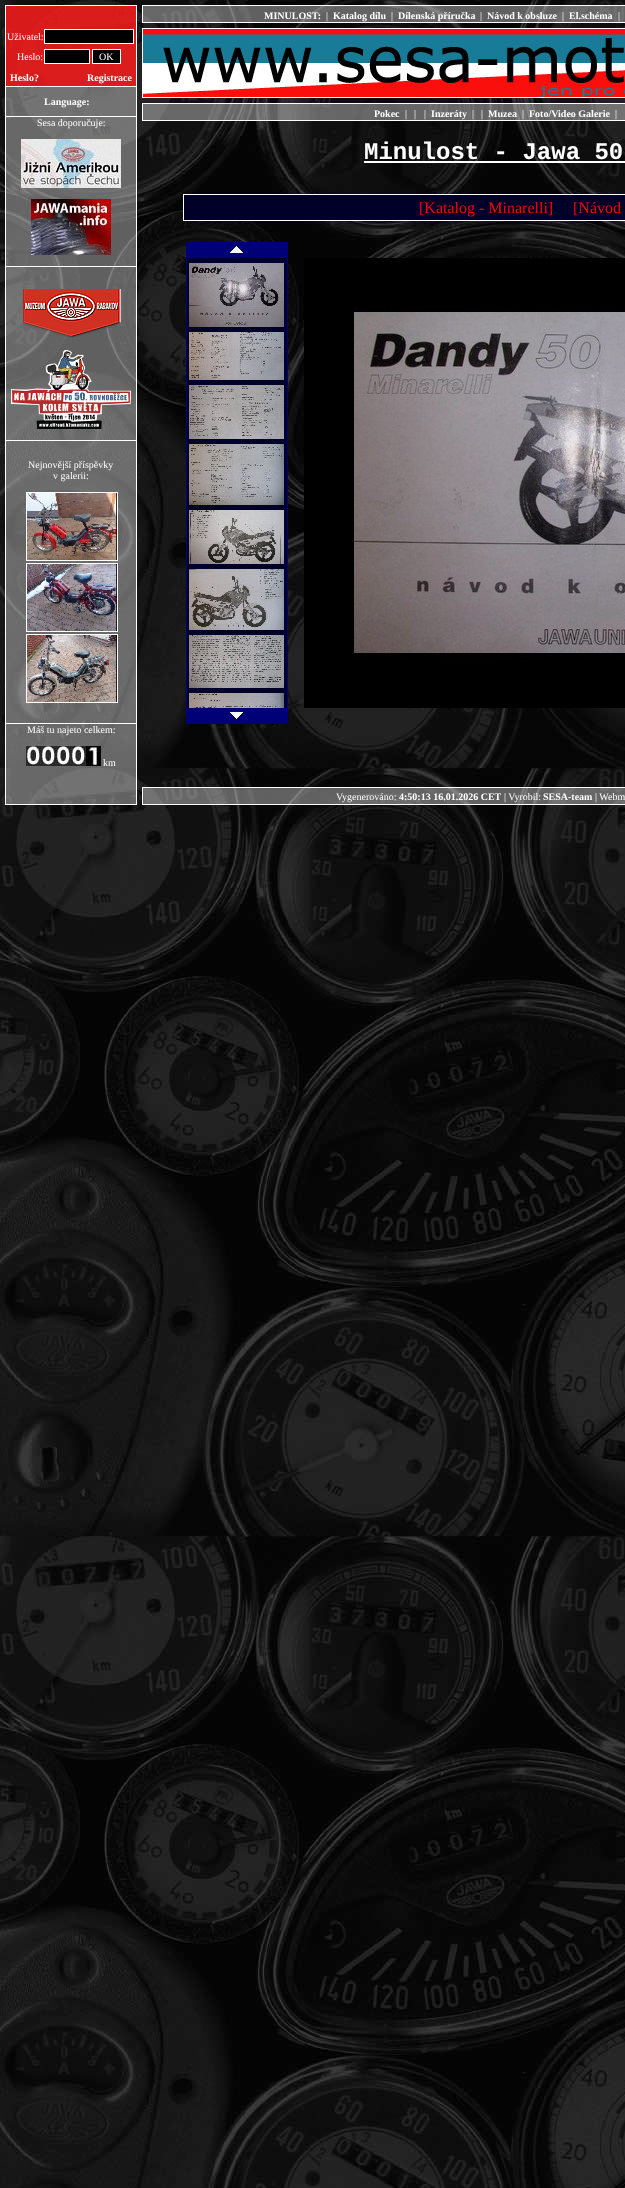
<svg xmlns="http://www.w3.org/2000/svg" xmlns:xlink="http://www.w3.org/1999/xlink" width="625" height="2188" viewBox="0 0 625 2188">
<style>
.cls-1{font:bold 10px Liberation Serif;fill:#ffffff}
.cls-2{font:10px Liberation Serif;fill:#ffffff}
.cls-3{font:bold 24px Liberation Mono;fill:#ffffff}
.cls-4{font:16px Liberation Serif;fill:#ff0000}
</style>
<rect width="100%" height="100%" fill="#ffffff"/>
<image xlink:href="image0.png" x="0" y="0" width="625" height="2188"/>
<rect fill="none" stroke="#ffffff" x="142.5" y="5.5" width="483" height="17"/>
<rect fill="#ffffff" fill-opacity="0.37" x="143" y="6" width="482" height="16"/>
<rect fill="#ffffff" fill-opacity="0.37" stroke="#ffffff" x="5.5" y="5.5" width="131" height="799"/>
<rect fill="#ffffff" x="6" y="86" width="130" height="1"/>
<rect fill="#ff0000" fill-opacity="0.75" x="6" y="6" width="130" height="80"/>
<rect fill="#000000" stroke="#ffffff" x="44.5" y="29.5" width="89" height="14"/>
<rect fill="#000000" stroke="#ffffff" x="44.5" y="49.5" width="45" height="14"/>
<rect fill="#000000" stroke="#ffffff" x="92.5" y="49.5" width="28" height="14"/>
<rect fill="#ffffff" x="6" y="116" width="130" height="1"/>
<rect fill="#ffffff" x="6" y="266" width="130" height="1"/>
<image xlink:href="image1.png" x="21" y="139" width="100" height="49"/>
<image xlink:href="image2.png" x="31" y="199" width="80" height="56"/>
<rect fill="#ffffff" x="6" y="440" width="130" height="1"/>
<image xlink:href="image3.png" x="23" y="289" width="98" height="49"/>
<image xlink:href="image4.png" x="11" y="350" width="120" height="79"/>
<rect fill="#ffffff" x="6" y="723" width="130" height="1"/>
<rect fill="none" stroke="#ffffff" x="26.5" y="492.5" width="91" height="68"/>
<image xlink:href="image5.png" x="27" y="493" width="90" height="67"/>
<rect fill="none" stroke="#ffffff" x="26.5" y="563.5" width="91" height="68"/>
<image xlink:href="image6.png" x="27" y="564" width="90" height="67"/>
<rect fill="none" stroke="#ffffff" x="26.5" y="634.5" width="91" height="68"/>
<image xlink:href="image7.png" x="27" y="635" width="90" height="67"/>
<image xlink:href="image8.png" x="26" y="746" width="15" height="20"/>
<image xlink:href="image8.png" x="41" y="746" width="15" height="20"/>
<image xlink:href="image8.png" x="56" y="746" width="15" height="20"/>
<image xlink:href="image8.png" x="71" y="746" width="15" height="20"/>
<image xlink:href="image9.png" x="86" y="746" width="15" height="20"/>
<image xlink:href="image10.png" x="143" y="29" width="482" height="5"/>
<rect fill="none" stroke="#ffffff" x="142.5" y="28.5" width="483" height="69"/>
<image xlink:href="image11.png" x="143" y="34" width="482" height="63"/>
<rect fill="none" stroke="#ffffff" x="142.5" y="103.5" width="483" height="17"/>
<rect fill="#ffffff" fill-opacity="0.37" x="143" y="104" width="482" height="16"/>
<rect fill="#ffffff" x="364" y="161" width="261" height="2"/>
<rect fill="none" stroke="#ffffff" x="183.5" y="194.5" width="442" height="26"/>
<rect fill="#000028" x="184" y="195" width="441" height="25"/>
<rect fill="none" stroke="#000077" x="186.5" y="242.5" width="101" height="481"/>
<rect fill="#000077" x="187" y="243" width="100" height="15"/>
<image xlink:href="image12.png" x="230" y="246" width="13" height="7"/>
<rect fill="#000028" x="187" y="258" width="100" height="450"/>
<image xlink:href="image13.png" x="189" y="263" width="95" height="64"/>
<image xlink:href="image14.png" x="189" y="332" width="95" height="48"/>
<image xlink:href="image15.png" x="189" y="385" width="95" height="54"/>
<image xlink:href="image16.png" x="189" y="444" width="95" height="61"/>
<image xlink:href="image17.png" x="189" y="510" width="95" height="54"/>
<image xlink:href="image18.png" x="189" y="569" width="95" height="61"/>
<image xlink:href="image19.png" x="189" y="635" width="95" height="53"/>
<image xlink:href="image20.png" x="189" y="693" width="95" height="15"/>
<rect fill="#000077" x="187" y="708" width="100" height="15"/>
<image xlink:href="image21.png" x="230" y="712" width="13" height="7"/>
<image xlink:href="image22.png" x="304" y="258" width="321" height="450"/>
<rect fill="none" stroke="#ffffff" x="142.5" y="787.5" width="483" height="17"/>
<rect fill="#ffffff" fill-opacity="0.37" x="143" y="788" width="482" height="16"/>
<text class="cls-1" x="264" y="19">MINULOST:</text>
<text class="cls-2" x="326" y="19">|</text>
<text class="cls-1" x="333" y="19">Katalog dílu</text>
<text class="cls-2" x="391" y="19">|</text>
<text class="cls-1" x="398" y="19">Dílenská příručka</text>
<text class="cls-2" x="480" y="19">|</text>
<text class="cls-1" x="487" y="19">Návod k obsluze</text>
<text class="cls-2" x="562" y="19">|</text>
<text class="cls-1" x="569" y="19">El.schéma</text>
<text class="cls-2" x="618" y="19">|</text>
<text class="cls-2" x="7" y="40">Uživatel:</text>
<text class="cls-2" x="17" y="60">Heslo:</text>
<text class="cls-2" x="99" y="60">OK</text>
<text class="cls-1" x="10" y="81">Heslo?</text>
<text class="cls-1" x="87" y="81">Registrace</text>
<text class="cls-1" x="44" y="105">Language:</text>
<text class="cls-2" x="37" y="126">Sesa doporučuje:</text>
<text class="cls-2" x="28" y="468">Nejnovější příspěvky</text>
<text class="cls-2" x="53" y="479">v galerii:</text>
<text class="cls-2" x="27" y="733">Máš tu najeto celkem:</text>
<text class="cls-2" x="103" y="766">km</text>
<text class="cls-1" x="374" y="117">Pokec</text>
<text class="cls-2" x="405" y="117">|</text>
<text class="cls-2" x="414" y="117">|</text>
<text class="cls-2" x="424" y="117">|</text>
<text class="cls-1" x="431" y="117">Inzeráty</text>
<text class="cls-2" x="472" y="117">|</text>
<text class="cls-2" x="481" y="117">|</text>
<text class="cls-1" x="488" y="117">Muzea</text>
<text class="cls-2" x="522" y="117">|</text>
<text class="cls-1" x="529" y="117">Foto/Video Galerie</text>
<text class="cls-2" x="615" y="117">|</text>
<text class="cls-3" x="364" y="159">Minulost - Jawa 50</text>
<text class="cls-4" x="419" y="213">[Katalog - Minarelli]</text>
<text class="cls-4" x="573" y="213">[Návod</text>
<text class="cls-2" x="336" y="800">Vygenerováno:</text>
<text class="cls-1" x="399" y="800">4:50:13 16.01.2026 CET</text>
<text class="cls-2" x="504" y="800">| Vyrobil:</text>
<text class="cls-1" x="543" y="800">SESA-team</text>
<text class="cls-2" x="595" y="800">| Webm</text>
</svg>
